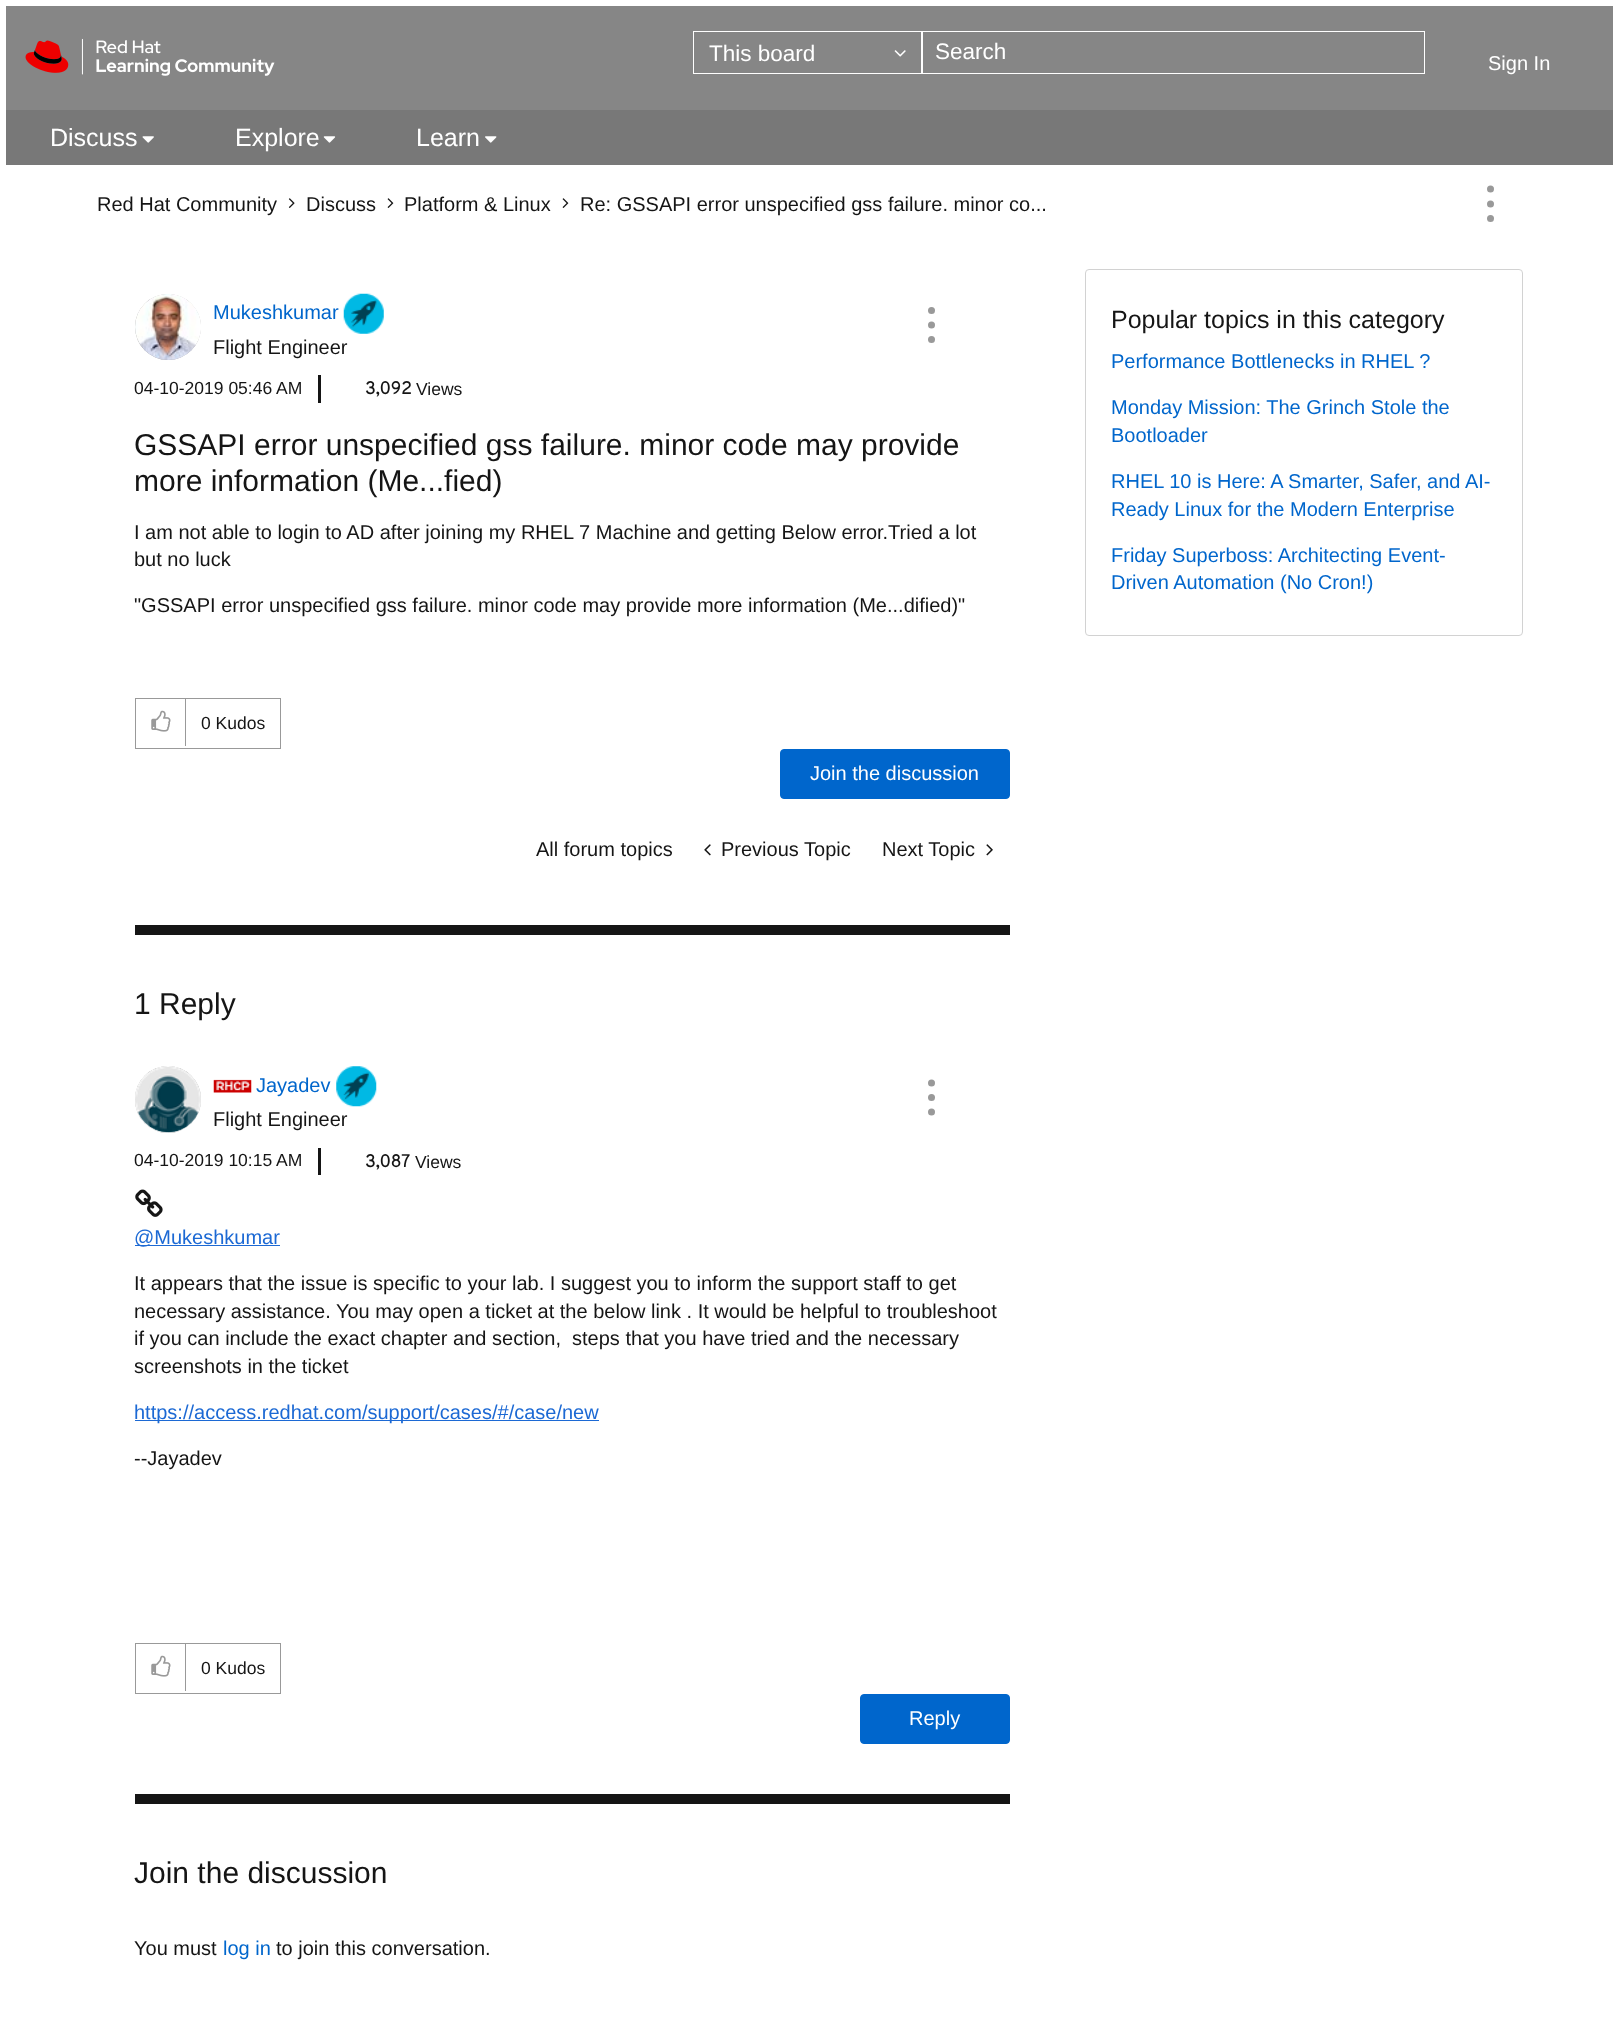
<svg xmlns="http://www.w3.org/2000/svg" xmlns:xlink="http://www.w3.org/1999/xlink" width="1618" height="2028" viewBox="0 0 1618 2028">
<style>
.cls-1{font:22.5px Liberation Sans;fill:#ffffff}
.cls-2{font:20px Liberation Sans;fill:#ffffff}
.cls-3{font:25px Liberation Sans;fill:#ffffff}
.cls-4{font:20px Liberation Sans;fill:#151515}
.cls-5{font:20px Liberation Sans;fill:#0066cc}
.cls-6{font:17.5px Liberation Sans;fill:#151515}
.cls-7{font:bold 17.5px Overpass;fill:#151515}
.cls-8{font:30px Liberation Sans;fill:#151515}
.cls-9{font:20px Liberation Sans;fill:#1c69d4}
.cls-10{font:25px Liberation Sans;fill:#151515}
</style>
<defs>
<clipPath id="clip1"><path d="M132 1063H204V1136H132ZM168 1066C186 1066 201 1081 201 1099V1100C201 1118 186 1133 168 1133C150 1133 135 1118 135 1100V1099C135 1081 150 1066 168 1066Z" clip-rule="evenodd"/></clipPath>
</defs>
<rect width="100%" height="100%" fill="#ffffff"/>
<rect fill="#787878" x="6" y="110" width="1607" height="55"/>
<rect fill="#868686" x="6" y="6" width="1607" height="104"/>
<image xlink:href="image0.png" x="25" y="38" width="250" height="38"/>
<rect fill="none" stroke="#ffffff" x="921.5" y="31.5" width="503" height="42"/>
<rect fill="none" stroke="#ffffff" x="693.5" y="31.5" width="229" height="42"/>
<image xlink:href="image1.png" x="894" y="50" width="12" height="7"/>
<image xlink:href="image2.png" x="142" y="136" width="12" height="7"/>
<image xlink:href="image3.png" x="323" y="136" width="13" height="7"/>
<image xlink:href="image4.png" x="485" y="136" width="12" height="7"/>
<image xlink:href="image5.png" x="288" y="198" width="7" height="10"/>
<image xlink:href="image6.png" x="387" y="198" width="7" height="10"/>
<image xlink:href="image6.png" x="562" y="198" width="7" height="10"/>
<circle fill="#999999" cx="1490.5" cy="189" r="3.5"/>
<circle fill="#999999" cx="1490.5" cy="204" r="3.5"/>
<circle fill="#999999" cx="1490.5" cy="218.5" r="3.5"/>
<rect fill="#999999" filter="blur(0.5px)" x="135" y="294" width="66" height="66" rx="33"/>
<image xlink:href="image7.png" x="135" y="294" width="66" height="66"/>
<image xlink:href="image8.png" x="343" y="293" width="41" height="41"/>
<circle fill="#999999" cx="931.5" cy="310.5" r="3.5"/>
<circle fill="#999999" cx="931.5" cy="325" r="3.5"/>
<circle fill="#999999" cx="931.5" cy="339.5" r="3.5"/>
<rect fill="#151515" x="318" y="375" width="3" height="28"/>
<rect fill="none" stroke="#999999" x="135.5" y="698.5" width="145" height="50"/>
<image xlink:href="image9.png" x="151" y="710" width="20" height="22"/>
<rect fill="#999999" x="185" y="699" width="1" height="47"/>
<rect fill="#0066cc" stroke="#0066cc" x="780.5" y="749.5" width="229" height="49" rx="3.5"/>
<image xlink:href="image10.png" x="704" y="844" width="7" height="12"/>
<image xlink:href="image11.png" x="986" y="844" width="7" height="12"/>
<rect fill="#151515" x="135" y="925" width="875" height="10"/>
<g clip-path="url(#clip1)">
<rect fill="#999999" filter="blur(0.5px)" x="135" y="1066" width="66" height="67" rx="33"/>
</g>
<image xlink:href="image12.png" x="135" y="1067" width="66" height="66"/>
<image xlink:href="image13.png" x="213" y="1079" width="39" height="14"/>
<image xlink:href="image14.png" x="336" y="1066" width="41" height="41"/>
<circle fill="#999999" cx="931.5" cy="1083" r="3.5"/>
<circle fill="#999999" cx="931.5" cy="1097.5" r="3.5"/>
<circle fill="#999999" cx="931.5" cy="1112" r="3.5"/>
<rect fill="#151515" x="318" y="1148" width="3" height="27"/>
<image xlink:href="image15.png" x="135" y="1189" width="28" height="28"/>
<rect fill="#1c69d4" x="135" y="1245" width="145" height="1"/>
<rect fill="#1c69d4" x="135" y="1420" width="464" height="1"/>
<rect fill="none" stroke="#999999" x="135.5" y="1643.5" width="145" height="50"/>
<image xlink:href="image9.png" x="151" y="1655" width="20" height="22"/>
<rect fill="#999999" x="185" y="1644" width="1" height="47"/>
<rect fill="#0066cc" stroke="#0066cc" x="860.5" y="1694.5" width="149" height="49" rx="3.5"/>
<rect fill="#151515" x="135" y="1794" width="875" height="10"/>
<rect fill="none" stroke="#d2d2d2" x="1085.5" y="269.5" width="437" height="366" rx="3.5"/>
<text class="cls-1" x="709" y="61">This board</text>
<text class="cls-1" x="935" y="59">Search</text>
<text class="cls-2" x="1488" y="70">Sign In</text>
<text class="cls-3" x="50" y="146">Discuss</text>
<text class="cls-3" x="235" y="146">Explore</text>
<text class="cls-3" x="416" y="146">Learn</text>
<text class="cls-4" x="97" y="211">Red Hat Community</text>
<text class="cls-4" x="306" y="211">Discuss</text>
<text class="cls-4" x="404" y="211">Platform &amp; Linux</text>
<text class="cls-4" x="580" y="211">Re: GSSAPI error unspecified gss failure. minor co...</text>
<text class="cls-5" x="213" y="319">Mukeshkumar</text>
<text class="cls-4" x="213" y="354">Flight Engineer</text>
<text class="cls-6" x="134" y="394">04-10-2019 05:46 AM</text>
<text class="cls-7" x="365" y="394">3,092</text>
<text class="cls-6" x="416" y="395">Views</text>
<text class="cls-8"><tspan x="134" y="455">GSSAPI error unspecified gss failure. minor code may provide</tspan><tspan x="134" y="491">more information (Me...fied)</tspan></text>
<text class="cls-4"><tspan x="134" y="539">I am not able to login to AD after joining my RHEL 7 Machine and getting Below error.Tried a lot</tspan><tspan x="134" y="566">but no luck</tspan></text>
<text class="cls-4" x="134" y="612">"GSSAPI error unspecified gss failure. minor code may provide more information (Me...dified)"</text>
<text class="cls-6" x="201" y="729">0 Kudos</text>
<text class="cls-2" x="810" y="780">Join the discussion</text>
<text class="cls-4" x="536" y="856">All forum topics</text>
<text class="cls-4" x="721" y="856">Previous Topic</text>
<text class="cls-4" x="882" y="856">Next Topic</text>
<text class="cls-8" x="134" y="1014">1 Reply</text>
<text class="cls-5" x="256" y="1092">Jayadev</text>
<text class="cls-4" x="213" y="1126">Flight Engineer</text>
<text class="cls-6" x="134" y="1166">04-10-2019 10:15 AM</text>
<text class="cls-7" x="365" y="1167">3,087</text>
<text class="cls-6" x="415" y="1168">Views</text>
<text class="cls-9" x="134" y="1244">@Mukeshkumar</text>
<text class="cls-4" xml:space="preserve"><tspan x="134" y="1290">It appears that the issue is specific to your lab. I suggest you to inform the support staff to get</tspan><tspan x="134" y="1318">necessary assistance. You may open a ticket at the below link . It would be helpful to troubleshoot</tspan><tspan x="134" y="1345">if you can include the exact chapter and section,  steps that you have tried and the necessary</tspan><tspan x="134" y="1373">screenshots in the ticket</tspan></text>
<text class="cls-9" x="134" y="1419">https://access.redhat.com/support/cases/#/case/new</text>
<text class="cls-4" x="134" y="1465">--Jayadev</text>
<text class="cls-6" x="201" y="1674">0 Kudos</text>
<text class="cls-2" x="909" y="1725">Reply</text>
<text class="cls-8" x="134" y="1883">Join the discussion</text>
<text class="cls-4" x="134" y="1955">You must</text>
<text class="cls-5" x="223" y="1955">log in</text>
<text class="cls-4" x="276" y="1955">to join this conversation.</text>
<text class="cls-10" x="1111" y="328">Popular topics in this category</text>
<text class="cls-5" x="1111" y="368">Performance Bottlenecks in RHEL ?</text>
<text class="cls-5"><tspan x="1111" y="414">Monday Mission: The Grinch Stole the</tspan><tspan x="1111" y="442">Bootloader</tspan></text>
<text class="cls-5"><tspan x="1111" y="488">RHEL 10 is Here: A Smarter, Safer, and AI-</tspan><tspan x="1111" y="516">Ready Linux for the Modern Enterprise</tspan></text>
<text class="cls-5"><tspan x="1111" y="562">Friday Superboss: Architecting Event-</tspan><tspan x="1111" y="589">Driven Automation (No Cron!)</tspan></text>
</svg>
